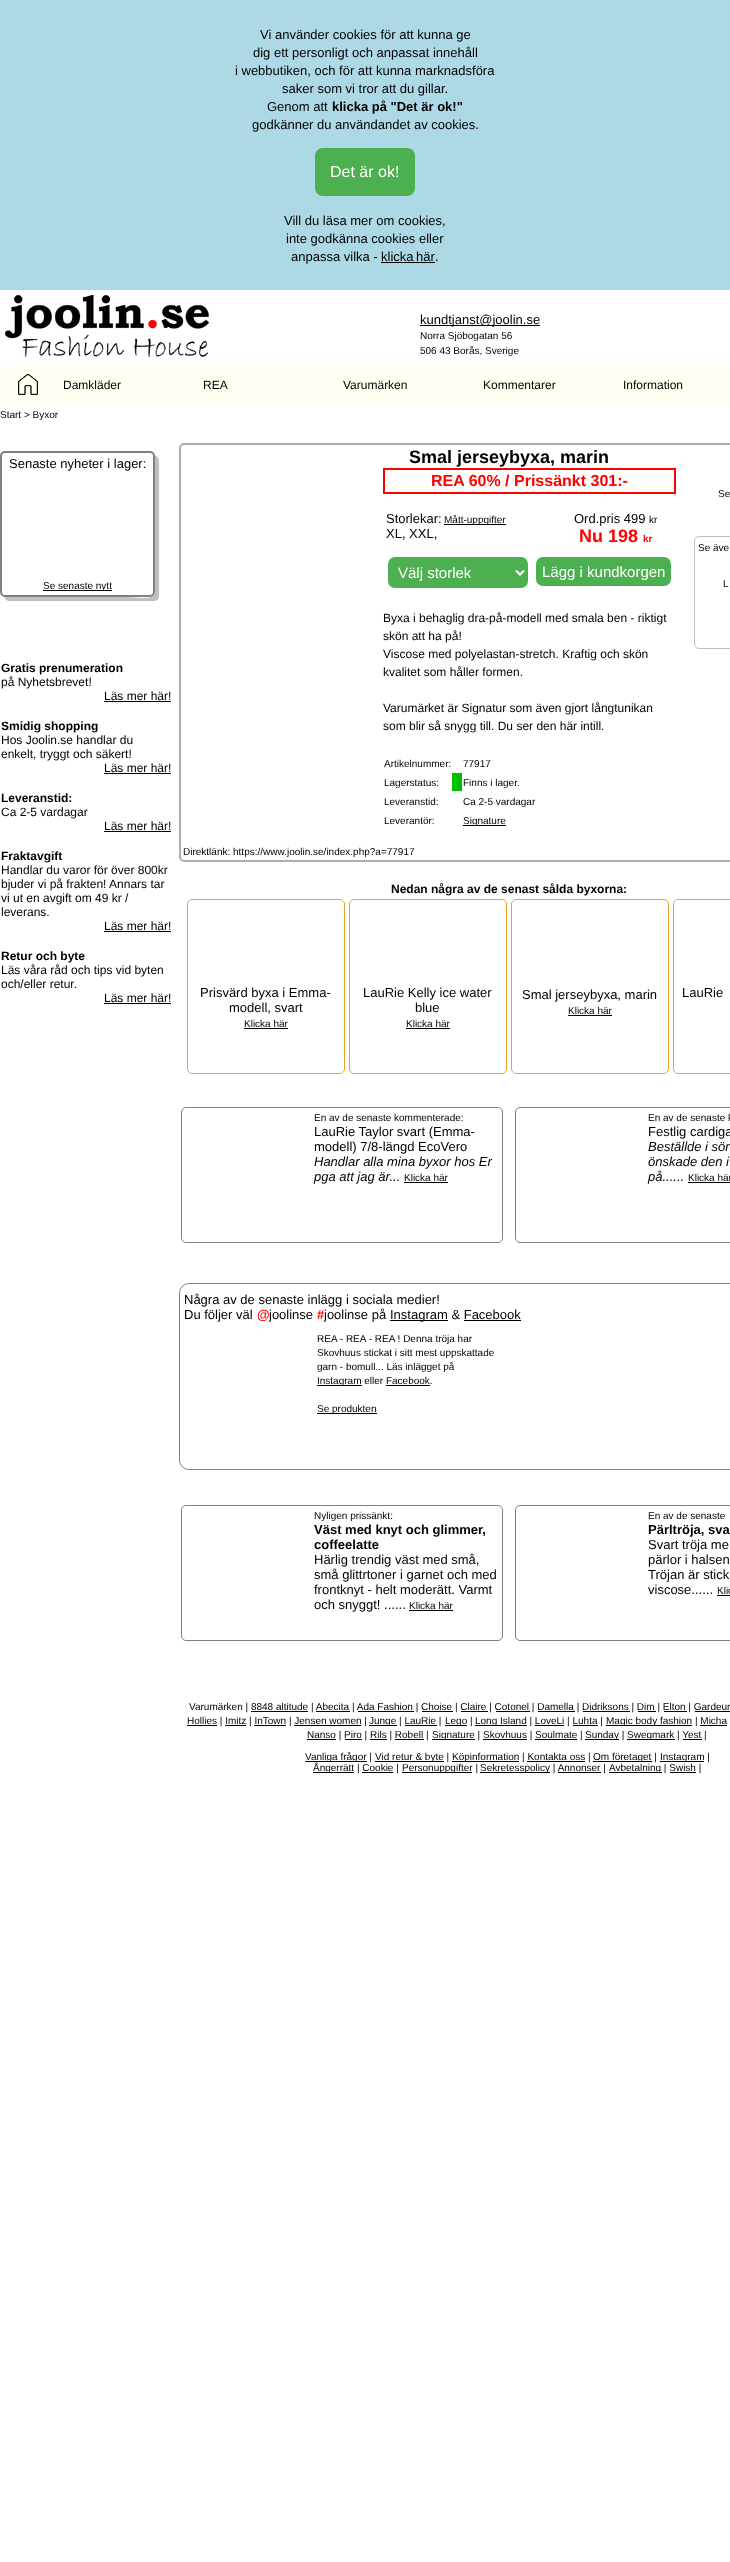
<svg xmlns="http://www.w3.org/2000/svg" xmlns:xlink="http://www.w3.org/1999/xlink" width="730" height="2562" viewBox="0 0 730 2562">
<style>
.cls-1{font:13px Liberation Sans;fill:#000000}
.cls-2{font:bold 13px Liberation Sans;fill:#000000}
.cls-3{font:16px Liberation Sans;fill:#ffffff}
.cls-4{font:10px Liberation Sans;fill:#000000}
.cls-5{font:12px Liberation Sans;fill:#000000}
.cls-6{font:bold 12px Liberation Sans;fill:#000000}
.cls-7{font:bold 18px Liberation Sans;fill:#000000}
.cls-8{font:bold 16px Liberation Sans;fill:#ff0000}
.cls-9{font:bold 18px Liberation Sans;fill:#ff0000}
.cls-10{font:bold 10px Liberation Sans;fill:#ff0000}
.cls-11{font:15px Liberation Sans;fill:#ffffff}
.cls-12{font:italic 13px Liberation Sans;fill:#000000}
.cls-13{font:bold 13px Liberation Sans;fill:#ff0000}
</style>
<rect width="100%" height="100%" fill="#ffffff"/>
<rect fill="#add8e6" x="0" y="0" width="730" height="290"/>
<rect fill="#4caf50" x="315" y="148" width="100" height="48" rx="8"/>
<rect fill="#000000" x="381" y="262" width="54" height="1"/>
<image xlink:href="image0.png" x="5" y="295" width="204" height="62"/>
<rect fill="#000000" x="420" y="325" width="120" height="1"/>
<rect fill="#fffff0" x="0" y="365" width="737" height="41" rx="7"/>
<image xlink:href="image1.png" x="18" y="374" width="20" height="21"/>
<path fill="#c0c0c0" d="M4 597C5 599 7 601 9 601H154C157 601 159 599 159 596V460C159 458 157 456 155 455V592C155 601 136 597 126 597Z"/>
<rect fill="#ffffff" stroke="#808080" stroke-width="2" x="1" y="452" width="153" height="144" rx="4"/>
<rect fill="#000000" x="43" y="590" width="69" height="1"/>
<rect fill="#000000" x="104" y="701" width="67" height="1"/>
<rect fill="#000000" x="104" y="773" width="67" height="1"/>
<rect fill="#000000" x="104" y="831" width="67" height="1"/>
<rect fill="#000000" x="104" y="931" width="67" height="1"/>
<rect fill="#000000" x="104" y="1003" width="67" height="1"/>
<rect fill="none" stroke="#adadad" stroke-width="2" x="180" y="444" width="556" height="417" rx="4"/>
<rect fill="none" stroke="#ff0000" x="383.5" y="468.5" width="292" height="25"/>
<rect fill="none" stroke="#ff0000" x="384.5" y="469.5" width="290" height="23"/>
<rect fill="#000000" x="444" y="524" width="62" height="1"/>
<rect fill="#4caf50" x="388" y="557" width="140" height="31" rx="7"/>
<path fill="none" stroke="#ffffff" stroke-width="2" d="M516 570.5L520 574.5L524 570.5"/>
<rect fill="#4caf50" x="536" y="557" width="135" height="29" rx="7"/>
<rect fill="#00c000" x="452" y="773" width="10" height="18"/>
<rect fill="#000000" x="463" y="825" width="43" height="1"/>
<rect fill="none" stroke="#c0c0c0" x="694.5" y="536.5" width="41" height="112" rx="4.5"/>
<rect fill="none" stroke="#efa529" x="187.5" y="899.5" width="157" height="174" rx="4.5"/>
<rect fill="#000000" x="244" y="1028" width="44" height="1"/>
<rect fill="none" stroke="#efa529" x="349.5" y="899.5" width="157" height="174" rx="4.5"/>
<rect fill="#000000" x="406" y="1028" width="44" height="1"/>
<rect fill="none" stroke="#efa529" x="511.5" y="899.5" width="157" height="174" rx="4.5"/>
<rect fill="#000000" x="568" y="1015" width="44" height="1"/>
<rect fill="none" stroke="#efa529" x="673.5" y="899.5" width="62" height="174" rx="4.5"/>
<rect fill="none" stroke="#808080" x="181.5" y="1107.5" width="321" height="135" rx="4.5"/>
<rect fill="#000000" x="404" y="1182" width="44" height="1"/>
<rect fill="none" stroke="#808080" x="515.5" y="1107.5" width="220" height="135" rx="4.5"/>
<rect fill="#000000" x="688" y="1182" width="42" height="1"/>
<rect fill="none" stroke="#808080" x="179.5" y="1283.5" width="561" height="186" rx="9.5"/>
<rect fill="#000000" x="390" y="1320" width="58" height="1"/>
<rect fill="#000000" x="464" y="1320" width="57" height="1"/>
<rect fill="#000000" x="317" y="1385" width="45" height="1"/>
<rect fill="#000000" x="386" y="1385" width="44" height="1"/>
<rect fill="#000000" x="317" y="1413" width="60" height="1"/>
<rect fill="none" stroke="#808080" x="181.5" y="1505.5" width="321" height="135" rx="4.5"/>
<rect fill="#000000" x="409" y="1610" width="44" height="1"/>
<rect fill="none" stroke="#808080" x="515.5" y="1505.5" width="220" height="135" rx="4.5"/>
<rect fill="#000000" x="717" y="1595" width="13" height="1"/>
<rect fill="#000000" x="251" y="1711" width="57" height="1"/>
<rect fill="#000000" x="316" y="1711" width="34" height="1"/>
<rect fill="#000000" x="358" y="1711" width="56" height="1"/>
<rect fill="#000000" x="422" y="1711" width="31" height="1"/>
<rect fill="#000000" x="461" y="1711" width="27" height="1"/>
<rect fill="#000000" x="496" y="1711" width="34" height="1"/>
<rect fill="#000000" x="538" y="1711" width="37" height="1"/>
<rect fill="#000000" x="583" y="1711" width="47" height="1"/>
<rect fill="#000000" x="638" y="1711" width="18" height="1"/>
<rect fill="#000000" x="664" y="1711" width="23" height="1"/>
<rect fill="#000000" x="695" y="1711" width="35" height="1"/>
<rect fill="#000000" x="187" y="1725" width="30" height="1"/>
<rect fill="#000000" x="369" y="1725" width="28" height="1"/>
<rect fill="#000000" x="445" y="1725" width="22" height="1"/>
<rect fill="#000000" x="475" y="1725" width="52" height="1"/>
<rect fill="#000000" x="606" y="1725" width="86" height="1"/>
<rect fill="#000000" x="225" y="1725" width="21" height="1"/>
<rect fill="#000000" x="254" y="1725" width="32" height="1"/>
<rect fill="#000000" x="294" y="1725" width="67" height="1"/>
<rect fill="#000000" x="405" y="1725" width="32" height="1"/>
<rect fill="#000000" x="535" y="1725" width="29" height="1"/>
<rect fill="#000000" x="573" y="1725" width="25" height="1"/>
<rect fill="#000000" x="700" y="1725" width="27" height="1"/>
<rect fill="#000000" x="307" y="1739" width="29" height="1"/>
<rect fill="#000000" x="432" y="1739" width="43" height="1"/>
<rect fill="#000000" x="585" y="1739" width="34" height="1"/>
<rect fill="#000000" x="627" y="1739" width="48" height="1"/>
<rect fill="#000000" x="345" y="1739" width="17" height="1"/>
<rect fill="#000000" x="370" y="1739" width="17" height="1"/>
<rect fill="#000000" x="395" y="1739" width="29" height="1"/>
<rect fill="#000000" x="483" y="1739" width="44" height="1"/>
<rect fill="#000000" x="535" y="1739" width="42" height="1"/>
<rect fill="#000000" x="683" y="1739" width="19" height="1"/>
<rect fill="#000000" x="305" y="1761" width="62" height="1"/>
<rect fill="#000000" x="375" y="1761" width="69" height="1"/>
<rect fill="#000000" x="452" y="1761" width="67" height="1"/>
<rect fill="#000000" x="593" y="1761" width="59" height="1"/>
<rect fill="#000000" x="660" y="1761" width="44" height="1"/>
<rect fill="#000000" x="527" y="1761" width="58" height="1"/>
<rect fill="#000000" x="313" y="1772" width="41" height="1"/>
<rect fill="#000000" x="402" y="1772" width="70" height="1"/>
<rect fill="#000000" x="480" y="1772" width="70" height="1"/>
<rect fill="#000000" x="609" y="1772" width="53" height="1"/>
<rect fill="#000000" x="362" y="1772" width="31" height="1"/>
<rect fill="#000000" x="558" y="1772" width="43" height="1"/>
<rect fill="#000000" x="670" y="1772" width="26" height="1"/>
<text class="cls-1" x="260" y="39">Vi använder cookies för att kunna ge</text>
<text class="cls-1" x="253" y="57">dig ett personligt och anpassat innehåll</text>
<text class="cls-1" x="235" y="75">i webbutiken, och för att kunna marknadsföra</text>
<text class="cls-1" x="282" y="93">saker som vi tror att du gillar.</text>
<text class="cls-1" x="267" y="111">Genom att</text>
<text class="cls-2" x="332" y="111">klicka på "Det är ok!"</text>
<text class="cls-1" x="252" y="129">godkänner du användandet av cookies.</text>
<text class="cls-3" x="330" y="177">Det är ok!</text>
<text class="cls-1" x="284" y="225">Vill du läsa mer om cookies,</text>
<text class="cls-1" x="286" y="243">inte godkänna cookies eller</text>
<text class="cls-1" x="291" y="261">anpassa vilka -</text>
<text class="cls-1" x="381" y="261" word-spacing="-1">klicka här</text>
<text class="cls-1" x="435" y="261">.</text>
<text class="cls-1" x="420" y="324">kundtjanst@joolin.se</text>
<text class="cls-4"><tspan x="420" y="339">Norra Sjöbogatan 56</tspan><tspan x="420" y="354">506 43 Borås, Sverige</tspan></text>
<text class="cls-5" x="63" y="389">Damkläder</text>
<text class="cls-5" x="203" y="389">REA</text>
<text class="cls-5" x="343" y="389">Varumärken</text>
<text class="cls-5" x="483" y="389">Kommentarer</text>
<text class="cls-5" x="623" y="389">Information</text>
<text class="cls-4" x="0" y="418">Start &gt; Byxor</text>
<text class="cls-1" x="9" y="468">Senaste nyheter i lager:</text>
<text class="cls-4" x="43" y="589">Se senaste nytt</text>
<text class="cls-6" x="1" y="672">Gratis prenumeration</text>
<text class="cls-5" x="1" y="686">på Nyhetsbrevet!</text>
<text class="cls-5" x="104" y="700">Läs mer här!</text>
<text class="cls-6" x="1" y="730">Smidig shopping</text>
<text class="cls-5"><tspan x="1" y="744">Hos Joolin.se handlar du</tspan><tspan x="1" y="758">enkelt, tryggt och säkert!</tspan></text>
<text class="cls-5" x="104" y="772">Läs mer här!</text>
<text class="cls-6" x="1" y="802">Leveranstid:</text>
<text class="cls-5" x="1" y="816">Ca 2-5 vardagar</text>
<text class="cls-5" x="104" y="830">Läs mer här!</text>
<text class="cls-6" x="1" y="860">Fraktavgift</text>
<text class="cls-5"><tspan x="1" y="874">Handlar du varor för över 800kr</tspan><tspan x="1" y="888">bjuder vi på frakten! Annars tar</tspan><tspan x="1" y="902">vi ut en avgift om 49 kr /</tspan><tspan x="1" y="916">leverans.</tspan></text>
<text class="cls-5" x="104" y="930">Läs mer här!</text>
<text class="cls-6" x="1" y="960">Retur och byte</text>
<text class="cls-5"><tspan x="1" y="974">Läs våra råd och tips vid byten</tspan><tspan x="1" y="988">och/eller retur.</tspan></text>
<text class="cls-5" x="104" y="1002">Läs mer här!</text>
<text class="cls-7" x="409" y="463">Smal jerseybyxa, marin</text>
<text class="cls-8" x="431" y="486">REA 60% / Prissänkt 301:-</text>
<text class="cls-1" x="386" y="523">Storlekar:</text>
<text class="cls-4" x="444" y="523">Mått-uppgifter</text>
<text class="cls-1" x="386" y="538">XL, XXL,</text>
<text class="cls-1" x="574" y="523">Ord.pris 499</text>
<text class="cls-4" x="649" y="523">kr</text>
<text class="cls-9" x="579" y="542">Nu 198</text>
<text class="cls-10" x="643" y="542">kr</text>
<text class="cls-11" x="398" y="578">Välj storlek</text>
<text class="cls-11" x="542" y="577">Lägg i kundkorgen</text>
<text class="cls-5"><tspan x="383" y="622">Byxa i behaglig dra-på-modell med smala ben - riktigt</tspan><tspan x="383" y="640">skön att ha på!</tspan><tspan x="383" y="658">Viscose med polyelastan-stretch. Kraftig och skön</tspan><tspan x="383" y="676">kvalitet som håller formen.</tspan></text>
<text class="cls-5"><tspan x="383" y="712">Varumärket är Signatur som även gjort långtunikan</tspan><tspan x="383" y="730">som blir så snygg till. Du ser den här intill.</tspan></text>
<text class="cls-4" x="384" y="767">Artikelnummer:</text>
<text class="cls-4" x="463" y="767">77917</text>
<text class="cls-4" x="384" y="786">Lagerstatus:</text>
<text class="cls-4" x="463" y="786">Finns i lager.</text>
<text class="cls-4" x="384" y="805">Leveranstid:</text>
<text class="cls-4" x="463" y="805">Ca 2-5 vardagar</text>
<text class="cls-4" x="384" y="824">Leverantör:</text>
<text class="cls-4" x="463" y="824">Signature</text>
<text class="cls-4" x="718" y="497">Se</text>
<text class="cls-4" x="698" y="551">Se äve</text>
<text class="cls-4" x="723" y="587">L</text>
<text class="cls-4" x="183" y="855">Direktlänk: https://www.joolin.se/index.php?a=77917</text>
<text class="cls-6" x="391" y="893">Nedan några av de senast sålda byxorna:</text>
<text class="cls-1" x="200" y="997">Prisvärd byxa i Emma-</text>
<text class="cls-1" x="229" y="1012">modell, svart</text>
<text class="cls-4" x="244" y="1027">Klicka här</text>
<text class="cls-1" x="363" y="997">LauRie Kelly ice water</text>
<text class="cls-1" x="415" y="1012">blue</text>
<text class="cls-4" x="406" y="1027">Klicka här</text>
<text class="cls-1" x="522" y="999">Smal jerseybyxa, marin</text>
<text class="cls-4" x="568" y="1014">Klicka här</text>
<text class="cls-1" x="682" y="997">LauRie</text>
<text class="cls-4" x="314" y="1121">En av de senaste kommenterade:</text>
<text class="cls-1"><tspan x="314" y="1136">LauRie Taylor svart (Emma-</tspan><tspan x="314" y="1151">modell) 7/8-längd EcoVero</tspan></text>
<text class="cls-12"><tspan x="314" y="1166">Handlar alla mina byxor hos Er</tspan><tspan x="314" y="1181">pga att jag är...</tspan></text>
<text class="cls-4" x="404" y="1181">Klicka här</text>
<text class="cls-4" x="648" y="1121">En av de senaste k</text>
<text class="cls-1" x="648" y="1136">Festlig cardiga</text>
<text class="cls-12"><tspan x="648" y="1151">Beställde i sön</tspan><tspan x="648" y="1166">önskade den i</tspan><tspan x="648" y="1181">på......</tspan></text>
<text class="cls-4" x="688" y="1181">Klicka här</text>
<text class="cls-1"><tspan x="184" y="1304">Några av de senaste inlägg i sociala medier!</tspan><tspan x="184" y="1319">Du följer väl</tspan></text>
<text class="cls-13" x="257" y="1319">@</text>
<text class="cls-1" x="269" y="1319">joolinse</text>
<text class="cls-13" x="317" y="1319">#</text>
<text class="cls-1" x="324" y="1319">joolinse på</text>
<text class="cls-1" x="390" y="1319">Instagram &amp; Facebook</text>
<text class="cls-4"><tspan x="317" y="1342">REA - REA - REA ! Denna tröja har</tspan><tspan x="317" y="1356">Skovhuus stickat i sitt mest uppskattade</tspan><tspan x="317" y="1370">garn - bomull... Läs inlägget på</tspan><tspan x="317" y="1384">Instagram eller Facebook.</tspan></text>
<text class="cls-4" x="317" y="1412">Se produkten</text>
<text class="cls-4" x="314" y="1519">Nyligen prissänkt:</text>
<text class="cls-2"><tspan x="314" y="1534">Väst med knyt och glimmer,</tspan><tspan x="314" y="1549">coffeelatte</tspan></text>
<text class="cls-1"><tspan x="314" y="1564">Härlig trendig väst med små,</tspan><tspan x="314" y="1579">små glittrtoner i garnet och med</tspan><tspan x="314" y="1594">frontknyt - helt moderätt. Varmt</tspan><tspan x="314" y="1609">och snyggt! ......</tspan></text>
<text class="cls-4" x="409" y="1609">Klicka här</text>
<text class="cls-4" x="648" y="1519">En av de senaste</text>
<text class="cls-2" x="648" y="1534">Pärltröja, sva</text>
<text class="cls-1"><tspan x="648" y="1549">Svart tröja me</tspan><tspan x="648" y="1564">pärlor i halsen</tspan><tspan x="648" y="1579">Tröjan är stick</tspan><tspan x="648" y="1594">viscose......</tspan></text>
<text class="cls-4" x="717" y="1594">Klic</text>
<text class="cls-4" x="189" y="1710">Varumärken | 8848 altitude | Abecita | Ada Fashion | Choise | Claire | Cotonel | Damella | Didriksons | Dim | Elton | Gardeur</text>
<text class="cls-4" x="187" y="1724">Hollies | Imitz | InTown | Jensen women |</text>
<text class="cls-4" x="369" y="1724">Junge | LauRie |</text>
<text class="cls-4" x="445" y="1724">Lego |</text>
<text class="cls-4" x="475" y="1724">Long Island | LoveLi | Luhta |</text>
<text class="cls-4" x="606" y="1724">Magic body fashion | Micha</text>
<text class="cls-4" x="307" y="1738">Nanso | Piro | Rils | Robell |</text>
<text class="cls-4" x="432" y="1738">Signature | Skovhuus | Soulmate |</text>
<text class="cls-4" x="585" y="1738">Sunday |</text>
<text class="cls-4" x="627" y="1738">Swegmark | Yest |</text>
<text class="cls-4" x="305" y="1760">Vanliga frågor |</text>
<text class="cls-4" x="375" y="1760">Vid retur &amp; byte |</text>
<text class="cls-4" x="452" y="1760">Köpinformation | Kontakta oss |</text>
<text class="cls-4" x="593" y="1760">Om företaget |</text>
<text class="cls-4" x="660" y="1760">Instagram |</text>
<text class="cls-4" x="313" y="1771">Ångerrätt | Cookie |</text>
<text class="cls-4" x="402" y="1771">Personuppgifter |</text>
<text class="cls-4" x="480" y="1771">Sekretesspolicy | Annonser |</text>
<text class="cls-4" x="609" y="1771">Avbetalning | Swish |</text>
</svg>
